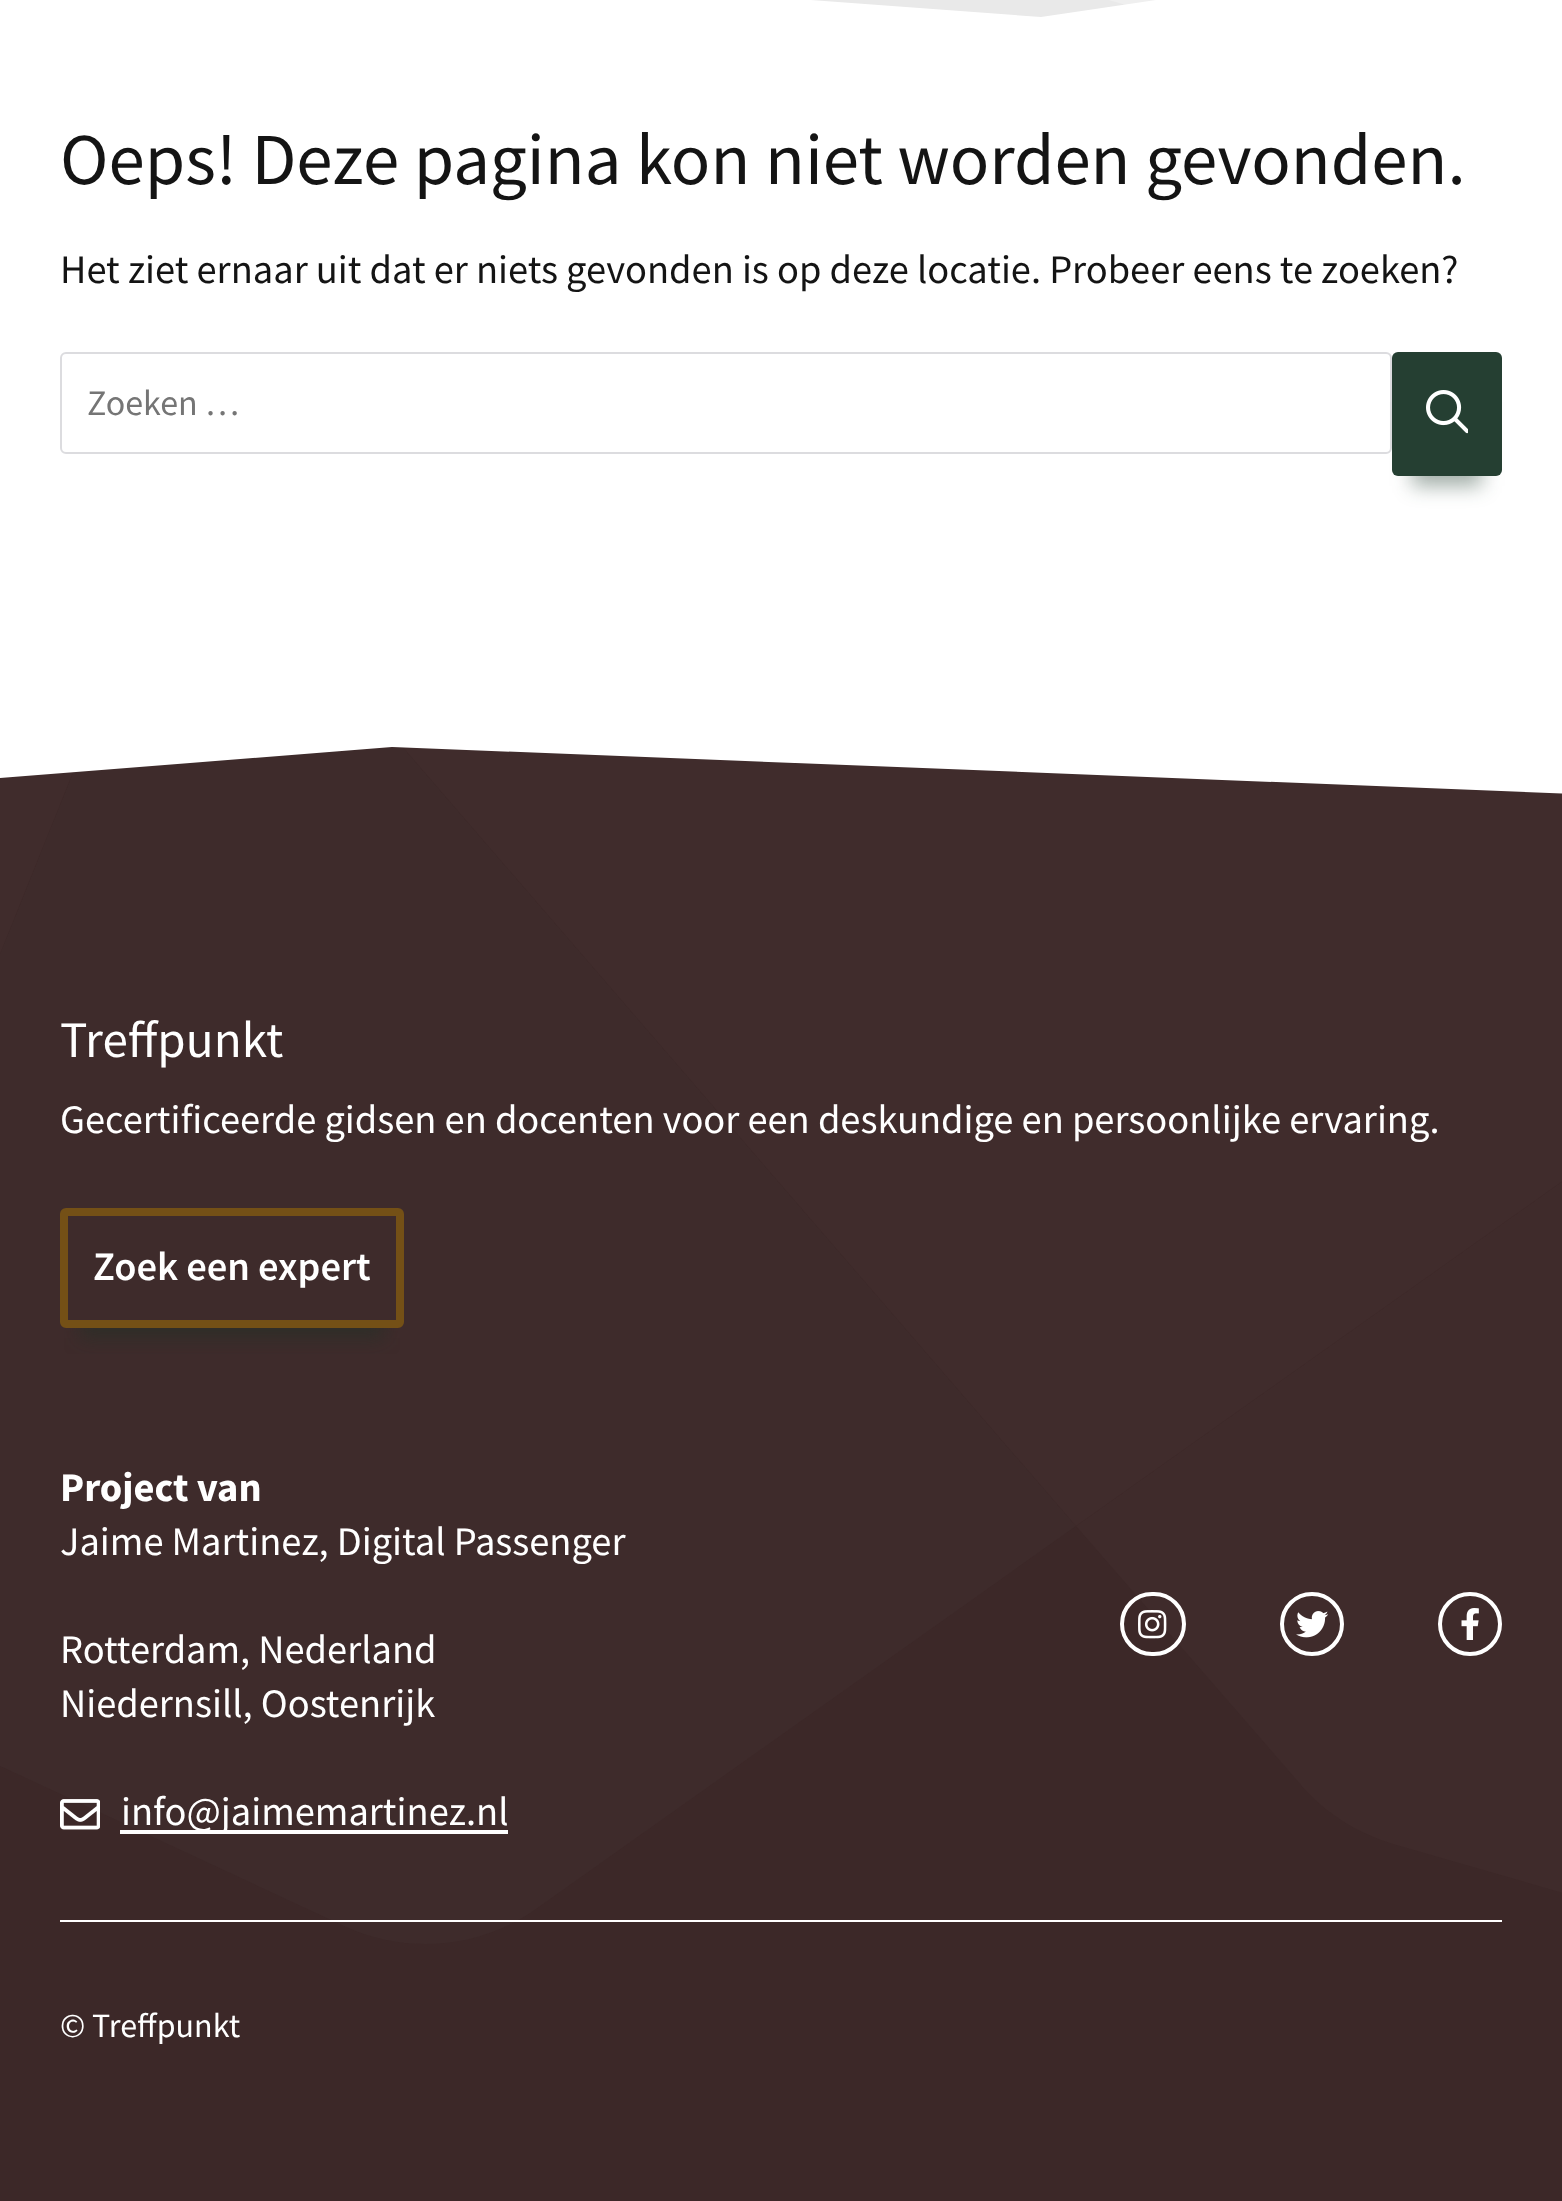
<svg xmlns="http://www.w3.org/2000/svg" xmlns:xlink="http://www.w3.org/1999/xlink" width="1562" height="2201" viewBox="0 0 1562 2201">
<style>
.cls-1{font:73px Source Sans Pro;fill:#141414}
.cls-2{font:40.5px Source Sans Pro;fill:#141414}
.cls-3{font:36px Source Sans Pro;fill:#757575}
.cls-4{font:51.25px Source Sans Pro;fill:#ffffff}
.cls-5{font:40.5px Source Sans Pro;fill:#ffffff}
.cls-6{font:600 40.5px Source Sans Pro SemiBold;fill:#ffffff}
.cls-7{font:bold 40.5px Source Sans Pro;fill:#ffffff}
.cls-8{font:34px Source Sans Pro;fill:#ffffff}
</style>
<defs>
<clipPath id="clip1"><rect x="0" y="0" width="1562" height="38"/></clipPath>
<clipPath id="clip2"><rect x="0" y="730" width="1562" height="78"/></clipPath>
<clipPath id="clip3"><rect x="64" y="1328" width="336" height="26"/></clipPath>
</defs>
<rect width="100%" height="100%" fill="#ffffff"/>
<rect fill="#e9e9e9" x="811" y="0" width="315" height="17"/>
<g clip-path="url(#clip1)">
<path fill="#efefef" d="M1355-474L901-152L991-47C1001-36 1014-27 1029-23L1559 130V-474Z"/>
<path fill="#ffffff" d="M-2 40H1562V-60L1041 17L-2-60Z"/>
</g>
<rect fill="none" stroke="#dcdcdf" stroke-width="2" x="61" y="353" width="1330" height="100" rx="5"/>
<rect fill="#143223" fill-opacity="0.4" filter="blur(10px)" x="1412" y="402" width="70" height="84"/>
<rect fill="#253f32" x="1392" y="352" width="110" height="124" rx="6"/>
<image xlink:href="image0.png" x="1426" y="390" width="42" height="44"/>
<rect fill="#3c2828" x="0" y="747" width="1562" height="1454"/>
<path fill="#3f2b2b" d="M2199 730L1076 1526L1301 1785C1325 1813 1357 1833 1393 1844L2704 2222V730Z"/>
<path fill="#3e2b2b" d="M90 730L-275 1638L344 1926C406 1955 480 1949 536 1909L1076 1526L388 730Z"/>
<path fill="#402c2c" d="M388 730L1076 1526L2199 730Z"/>
<path fill="#402c2c" d="M-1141 730V1234L-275 1638L90 730Z"/>
<g clip-path="url(#clip2)">
<path fill="#ffffff" d="M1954 729H-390V809L392 747L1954 809Z"/>
</g>
<g clip-path="url(#clip3)">
<rect fill="#143223" fill-opacity="0.4" filter="blur(10px)" x="80" y="1258" width="304" height="80"/>
</g>
<rect fill="none" stroke="#745016" stroke-width="8" x="64" y="1212" width="336" height="112" rx="2"/>
<image xlink:href="image1.png" x="60" y="1799" width="40" height="31"/>
<rect fill="#ffffff" x="120" y="1830" width="388" height="4"/>
<rect fill="none" stroke="#ffffff" stroke-width="4" x="1122" y="1594" width="62" height="60" rx="30"/>
<image xlink:href="image2.png" x="1138" y="1610" width="29" height="29"/>
<circle fill="none" stroke="#ffffff" stroke-width="4" cx="1312" cy="1624" r="30"/>
<image xlink:href="image3.png" x="1296" y="1611" width="32" height="27"/>
<circle fill="none" stroke="#ffffff" stroke-width="4" cx="1470" cy="1624" r="30"/>
<image xlink:href="image4.png" x="1461" y="1608" width="18" height="32"/>
<rect fill="#ffffff" x="60" y="1920" width="1442" height="2"/>
<text class="cls-1" x="60" y="184">Oeps! Deze pagina kon niet worden gevonden.</text>
<text class="cls-2" x="60" y="283">Het ziet ernaar uit dat er niets gevonden is op deze locatie. Probeer eens te zoeken?</text>
<text class="cls-3" x="87" y="415">Zoeken …</text>
<text class="cls-4" x="60" y="1057">Treffpunkt</text>
<text class="cls-5" x="60" y="1133">Gecertificeerde gidsen en docenten voor een deskundige en persoonlijke ervaring.</text>
<text class="cls-6" x="93" y="1280">Zoek een expert</text>
<text class="cls-7" x="60" y="1501">Project van</text>
<text class="cls-5" x="60" y="1555">Jaime Martinez, Digital Passenger</text>
<text class="cls-5"><tspan x="60" y="1663">Rotterdam, Nederland</tspan><tspan x="60" y="1717">Niedernsill, Oostenrijk</tspan></text>
<text class="cls-5" x="121" y="1825">info@jaimemartinez.nl</text>
<text class="cls-8" x="60" y="2037">© Treffpunkt</text>
</svg>
